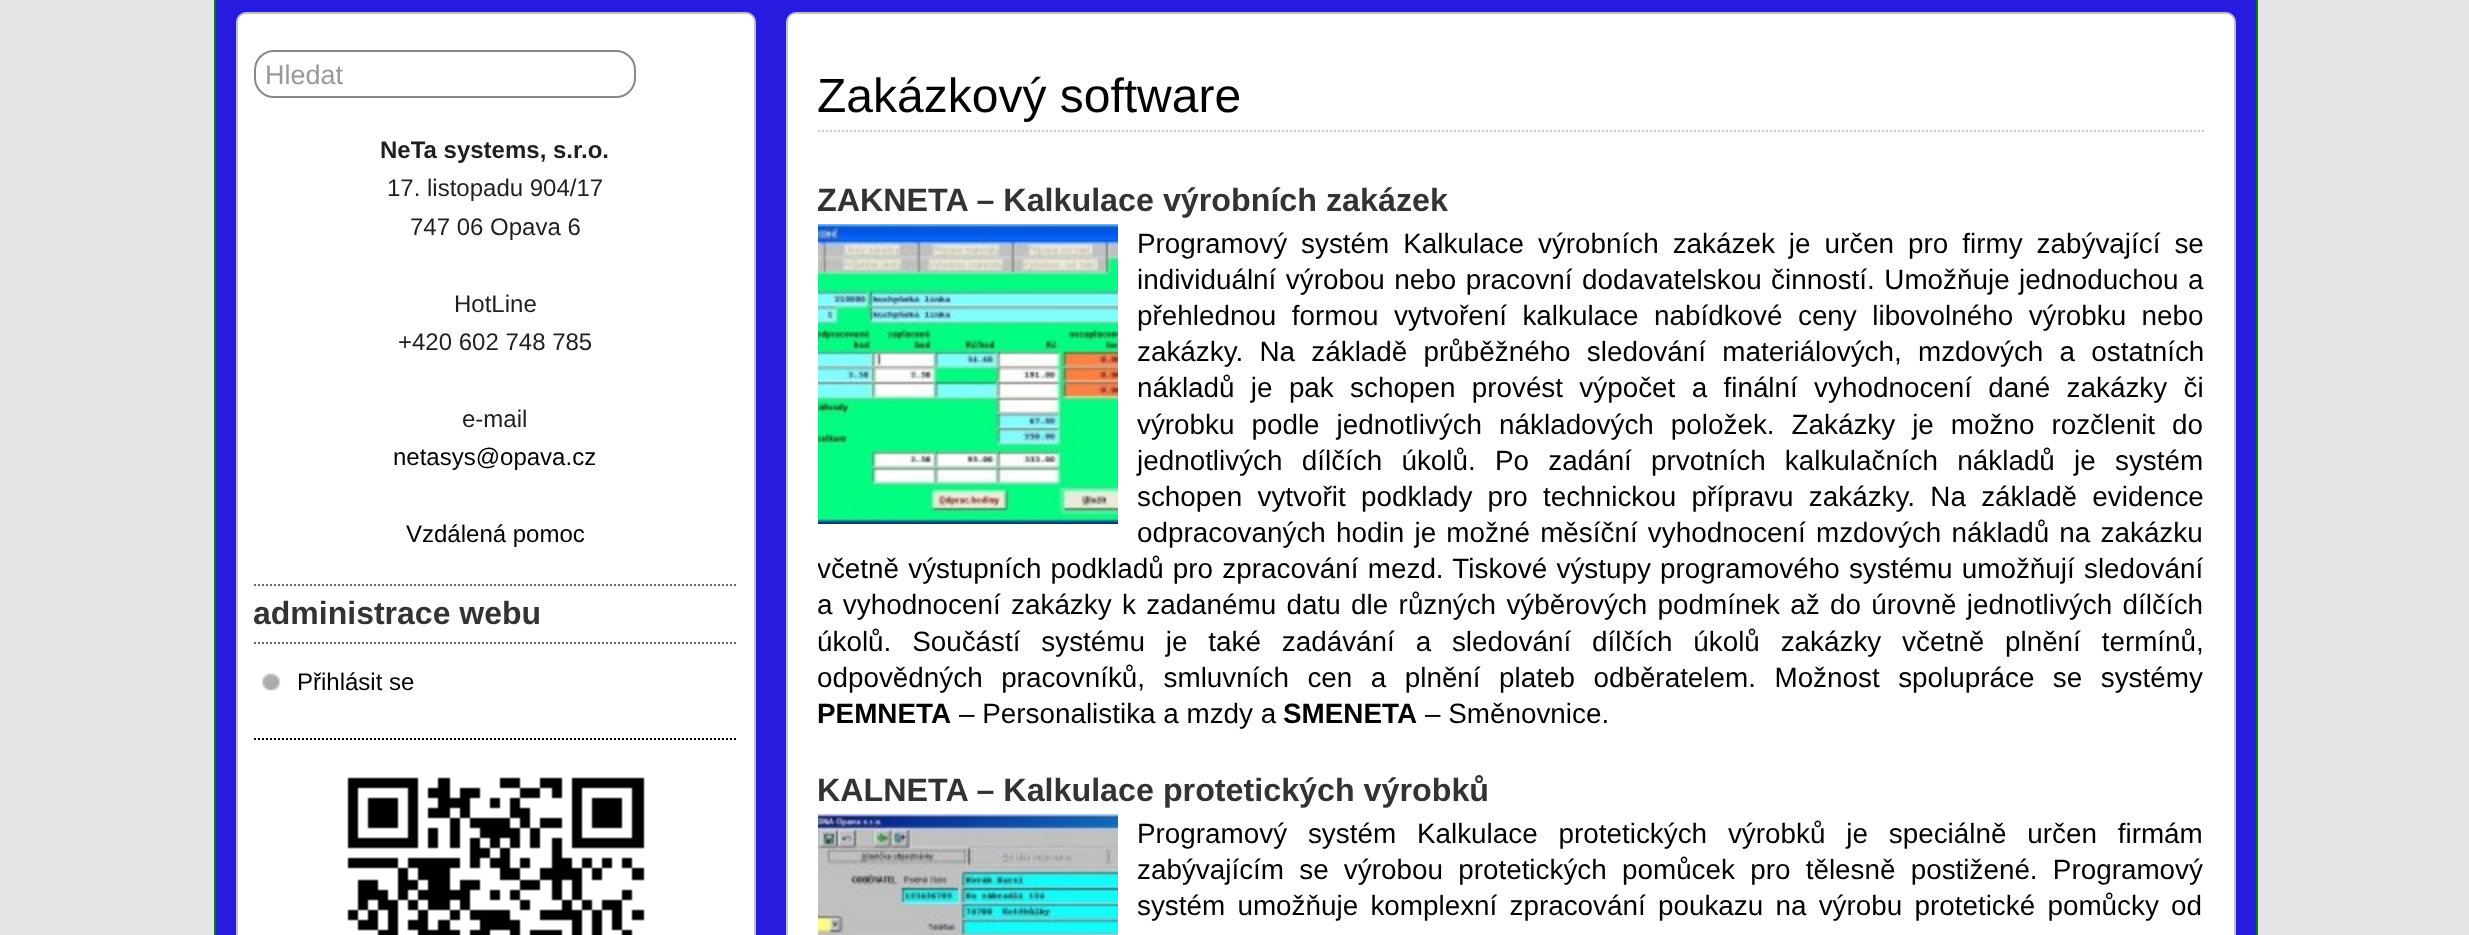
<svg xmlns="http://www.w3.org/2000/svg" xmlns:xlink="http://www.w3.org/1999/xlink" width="2469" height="935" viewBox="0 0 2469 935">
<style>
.cls-1{font:27px Liberation Sans;fill:#999999}
.cls-2{font:bold 24px Liberation Sans;fill:#1f1f1f}
.cls-3{font:24px Liberation Sans;fill:#1f1f1f}
.cls-4{font:24px Liberation Sans;fill:#000000}
.cls-5{font:bold 32px Liberation Sans;fill:#333333}
.cls-6{font:48px Liberation Sans;fill:#000000}
.cls-7{font:bold 32.25px Liberation Sans;fill:#333333}
.cls-8{font:27.85px Liberation Sans;fill:#000000}
.cls-9{font:bold 27.85px Liberation Sans;fill:#000000}
</style>
<defs>
<clipPath id="clip1"><rect x="818" y="136" width="1386" height="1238"/></clipPath>
</defs>
<rect width="100%" height="100%" fill="#e5e5e5"/>
<rect fill="#281be0" stroke="#008000" stroke-width="2" x="215" y="-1" width="2042" height="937"/>
<rect fill="#ffffff" stroke="#c0c0c0" stroke-width="2" x="237" y="13" width="518" height="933" rx="9"/>
<rect fill="none" stroke="#888888" stroke-width="2" x="255" y="51" width="380" height="46" rx="19"/>
<path fill="none" stroke="#666666" stroke-width="2" stroke-dasharray="2 2" d="M254 585H738"/>
<path fill="none" stroke="#666666" stroke-width="2" stroke-dasharray="2 2" d="M254 643H738"/>
<image xlink:href="image0.png" x="262" y="673" width="19" height="18"/>
<path fill="none" stroke="#000000" stroke-width="2" stroke-dasharray="2 2" d="M254 739H738"/>
<image xlink:href="image1.png" x="347" y="777" width="298" height="158"/>
<rect fill="#ffffff" stroke="#c0c0c0" stroke-width="2" x="787" y="13" width="1448" height="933" rx="9"/>
<path fill="none" stroke="#cccccc" stroke-width="2" stroke-dasharray="2 2" d="M818 131H2204"/>
<image xlink:href="image2.png" x="818" y="224" width="300" height="300"/>
<image xlink:href="image3.png" x="818" y="814" width="300" height="121"/>
<text class="cls-1" x="265" y="84">Hledat</text>
<text class="cls-2" x="380" y="158">NeTa systems, s.r.o.</text>
<text class="cls-3" x="387" y="196">17. listopadu 904/17</text>
<text class="cls-3" x="410" y="235">747 06 Opava 6</text>
<text class="cls-3" x="454" y="312">HotLine</text>
<text class="cls-3" x="398" y="350">+420 602 748 785</text>
<text class="cls-3" x="462" y="427">e-mail</text>
<text class="cls-4" x="393" y="465">netasys@opava.cz</text>
<text class="cls-4" x="406" y="542">Vzdálená pomoc</text>
<text class="cls-5" x="253" y="624">administrace webu</text>
<text class="cls-4" x="297" y="690">Přihlásit se</text>
<text class="cls-6" x="817" y="112">Zakázkový software</text>
<text class="cls-7" x="817" y="211">ZAKNETA – Kalkulace výrobních zakázek</text>
<text class="cls-8"><tspan x="1137" y="253" word-spacing="6.25">Programový systém Kalkulace výrobních zakázek je určen pro firmy zabývající se</tspan><tspan x="1137" y="289" word-spacing="1.75">individuální výrobou nebo pracovní dodavatelskou činností. Umožňuje jednoduchou a</tspan><tspan x="1137" y="325" word-spacing="7.75">přehlednou formou vytvoření kalkulace nabídkové ceny libovolného výrobku nebo</tspan><tspan x="1137" y="361" word-spacing="8.5">zakázky. Na základě průběžného sledování materiálových, mzdových a ostatních</tspan><tspan x="1137" y="397" word-spacing="8.6">nákladů je pak schopen provést výpočet a finální vyhodnocení dané zakázky či</tspan><tspan x="1137" y="434" word-spacing="9.25">výrobku podle jednotlivých nákladových položek. Zakázky je možno rozčlenit do</tspan><tspan x="1137" y="470" word-spacing="11.5">jednotlivých dílčích úkolů. Po zadání prvotních kalkulačních nákladů je systém</tspan><tspan x="1137" y="506" word-spacing="7.5">schopen vytvořit podklady pro technickou přípravu zakázky. Na základě evidence</tspan><tspan x="1137" y="542" word-spacing="2.5">odpracovaných hodin je možné měsíční vyhodnocení mzdových nákladů na zakázku</tspan></text>
<g clip-path="url(#clip1)">
<text class="cls-8" x="817" y="578" word-spacing="1.5">včetně výstupních podkladů pro zpracování mezd. Tiskové výstupy programového systému umožňují sledování</text>
</g>
<text class="cls-8"><tspan x="817" y="614" word-spacing="2.6">a vyhodnocení zakázky k zadanému datu dle různých výběrových podmínek až do úrovně jednotlivých dílčích</tspan><tspan x="817" y="651" word-spacing="13.1">úkolů. Součástí systému je také zadávání a sledování dílčích úkolů zakázky včetně plnění termínů,</tspan><tspan x="817" y="687" word-spacing="10.75">odpovědných pracovníků, smluvních cen a plnění plateb odběratelem. Možnost spolupráce se systémy</tspan></text>
<text class="cls-9" x="817" y="723">PEMNETA</text>
<text class="cls-8" x="959" y="723">– Personalistika a mzdy a</text>
<text class="cls-9" x="1283" y="723">SMENETA</text>
<text class="cls-8" x="1425" y="723">– Směnovnice.</text>
<text class="cls-7" x="817" y="801">KALNETA – Kalkulace protetických výrobků</text>
<text class="cls-8"><tspan x="1137" y="843" word-spacing="13.1">Programový systém Kalkulace protetických výrobků je speciálně určen firmám</tspan><tspan x="1137" y="879" word-spacing="7.5">zabývajícím se výrobou protetických pomůcek pro tělesně postižené. Programový</tspan><tspan x="1137" y="915" word-spacing="4.5">systém umožňuje komplexní zpracování poukazu na výrobu protetické pomůcky od</tspan></text>
</svg>
